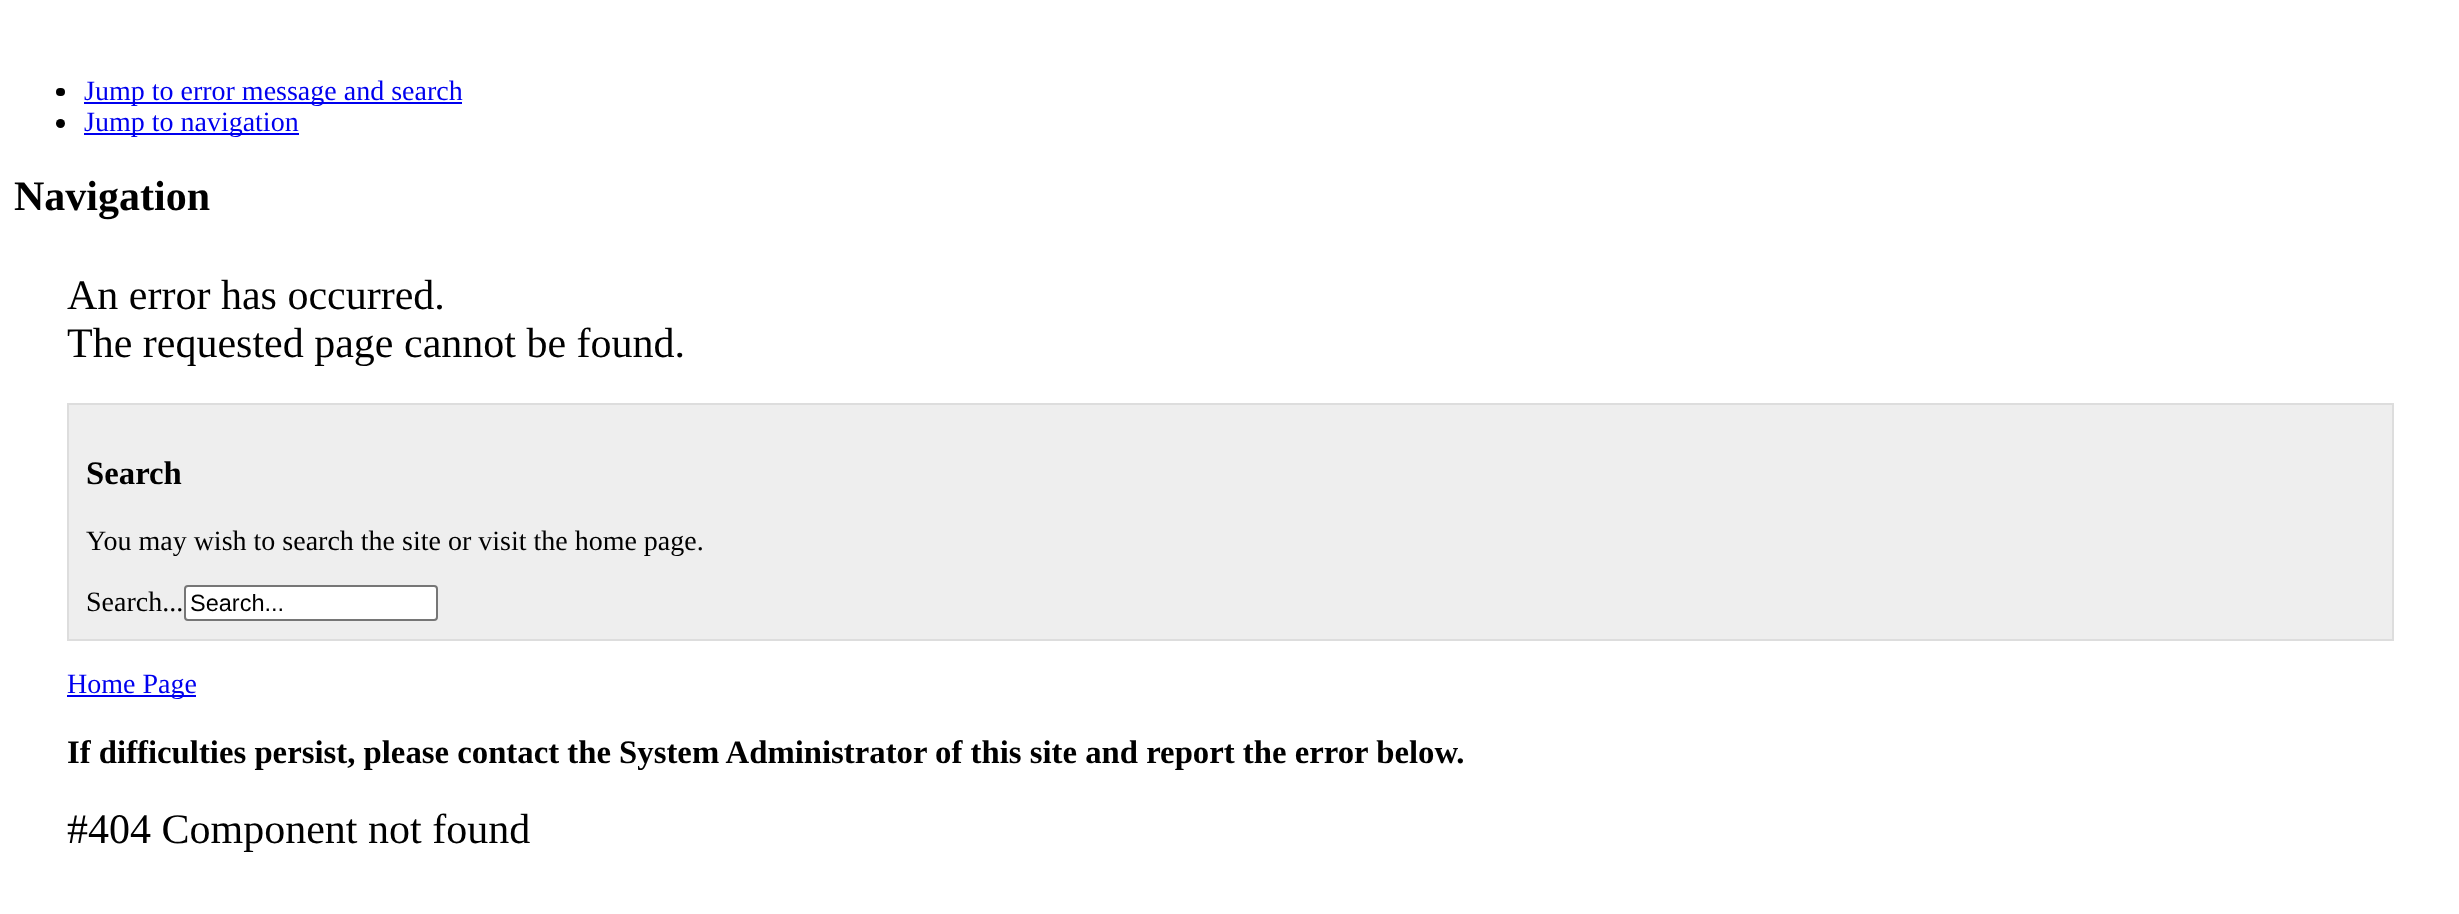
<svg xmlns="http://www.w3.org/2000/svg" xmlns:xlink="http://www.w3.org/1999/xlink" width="2459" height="914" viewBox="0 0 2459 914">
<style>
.cls-1{font:28px Liberation Serif;fill:#0000ee}
.cls-2{font:bold 42px Liberation Serif;fill:#000000}
.cls-3{font:42px Liberation Serif;fill:#000000}
.cls-4{font:bold 32.75px Liberation Serif;fill:#000000}
.cls-5{font:28px Liberation Serif;fill:#000000}
.cls-6{font:23.5px Liberation Sans;fill:#000000}
</style>
<rect width="100%" height="100%" fill="#ffffff"/>
<rect fill="#000000" x="56" y="88" width="9" height="8" rx="4"/>
<rect fill="#0000ee" x="84" y="102" width="378" height="2"/>
<circle fill="#000000" cx="60.5" cy="123.5" r="4.5"/>
<rect fill="#0000ee" x="84" y="133" width="215" height="2"/>
<rect fill="#eeeeee" stroke="#dddddd" stroke-width="2" x="68" y="404" width="2325" height="236"/>
<rect fill="#ffffff" stroke="#767676" stroke-width="2" x="185" y="586" width="252" height="34" rx="3"/>
<rect fill="#0000ee" x="67" y="695" width="129" height="2"/>
<text class="cls-1"><tspan x="84" y="100">Jump to error message and search</tspan><tspan x="84" y="131">Jump to navigation</tspan></text>
<text class="cls-2" x="14" y="210">Navigation</text>
<text class="cls-3"><tspan x="67" y="309">An error has occurred.</tspan><tspan x="67" y="357">The requested page cannot be found.</tspan></text>
<text class="cls-4" x="86" y="484">Search</text>
<text class="cls-5" x="86" y="550">You may wish to search the site or visit the home page.</text>
<text class="cls-5" x="86" y="611">Search...</text>
<text class="cls-6" x="190" y="611">Search...</text>
<text class="cls-1" x="67" y="693">Home Page</text>
<text class="cls-4" x="67" y="763">If difficulties persist, please contact the System Administrator of this site and report the error below.</text>
<text class="cls-3" x="67" y="843">#404 Component not found</text>
</svg>
